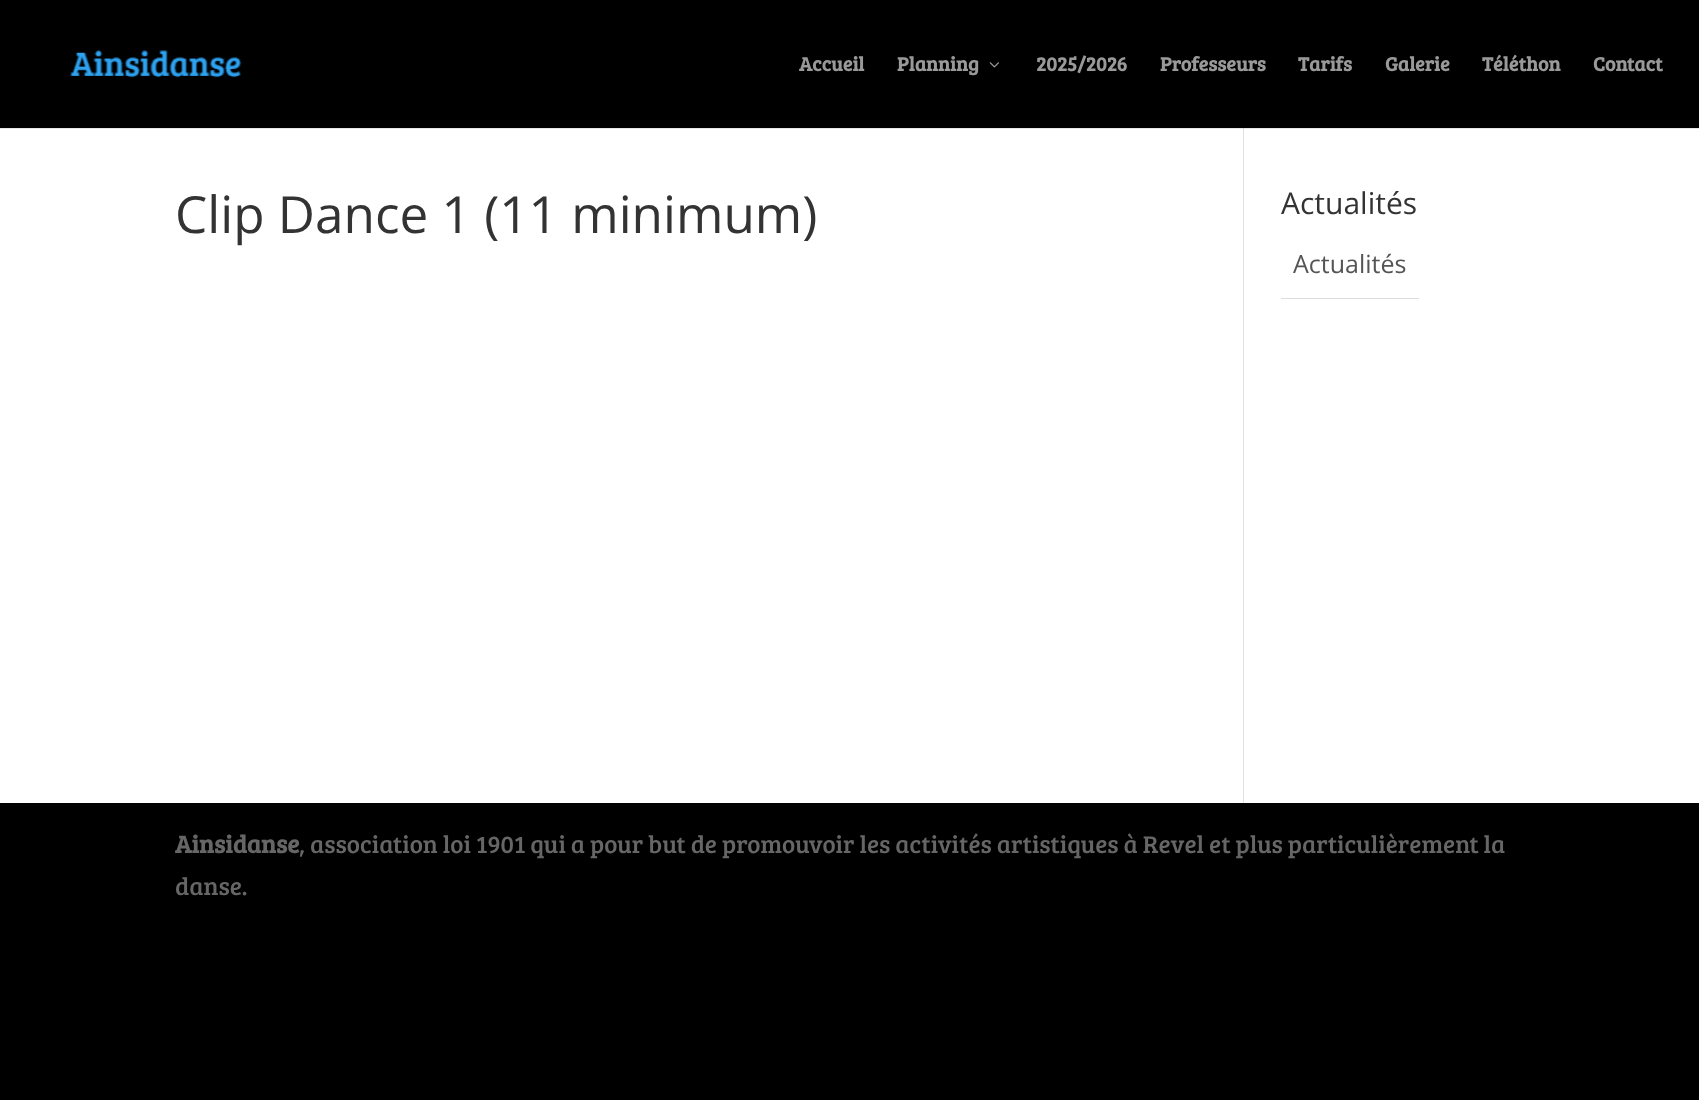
<svg xmlns="http://www.w3.org/2000/svg" xmlns:xlink="http://www.w3.org/1999/xlink" width="1699" height="1100" viewBox="0 0 1699 1100">
<style>
.cls-1{font:bold 20px Bree Serif;fill:#999999}
.cls-2{font:51.25px Open Sans;fill:#333333}
.cls-3{font:30px Open Sans;fill:#333333}
.cls-4{font:25px Open Sans;fill:#555555}
.cls-5{font:bold 25px Bree Serif;fill:#666666}
.cls-6{font:25px Bree Serif;fill:#666666}
</style>
<rect width="100%" height="100%" fill="#000000"/>
<image xlink:href="image0.png" x="70" y="50" width="172" height="28"/>
<image xlink:href="image1.png" x="989" y="62" width="10" height="6"/>
<rect fill="#ffffff" x="0" y="129" width="1699" height="674"/>
<rect fill="#e6e6e6" x="0" y="128" width="1699" height="1"/>
<rect fill="#e2e2e2" x="1243" y="129" width="1" height="674"/>
<rect fill="#cbcbcb" x="1243" y="128" width="1" height="1"/>
<rect fill="#dddddd" x="1281" y="298" width="138" height="1"/>
<text class="cls-1" x="799" y="71">Accueil</text>
<text class="cls-1" x="897" y="71">Planning</text>
<text class="cls-1" x="1036" y="71">2025/2026</text>
<text class="cls-1" x="1160" y="71">Professeurs</text>
<text class="cls-1" x="1298" y="71">Tarifs</text>
<text class="cls-1" x="1385" y="71">Galerie</text>
<text class="cls-1" x="1482" y="71">Téléthon</text>
<text class="cls-1" x="1593" y="71">Contact</text>
<text class="cls-2" x="175" y="233">Clip Dance 1 (11 minimum)</text>
<text class="cls-3" x="1281" y="214">Actualités</text>
<text class="cls-4" x="1293" y="273">Actualités</text>
<text class="cls-5" x="175" y="853">Ainsidanse</text>
<text class="cls-6" x="299" y="853">, association loi 1901 qui a pour but de promouvoir les activités artistiques à Revel et plus particulièrement la</text>
<text class="cls-6" x="175" y="895">danse.</text>
</svg>
